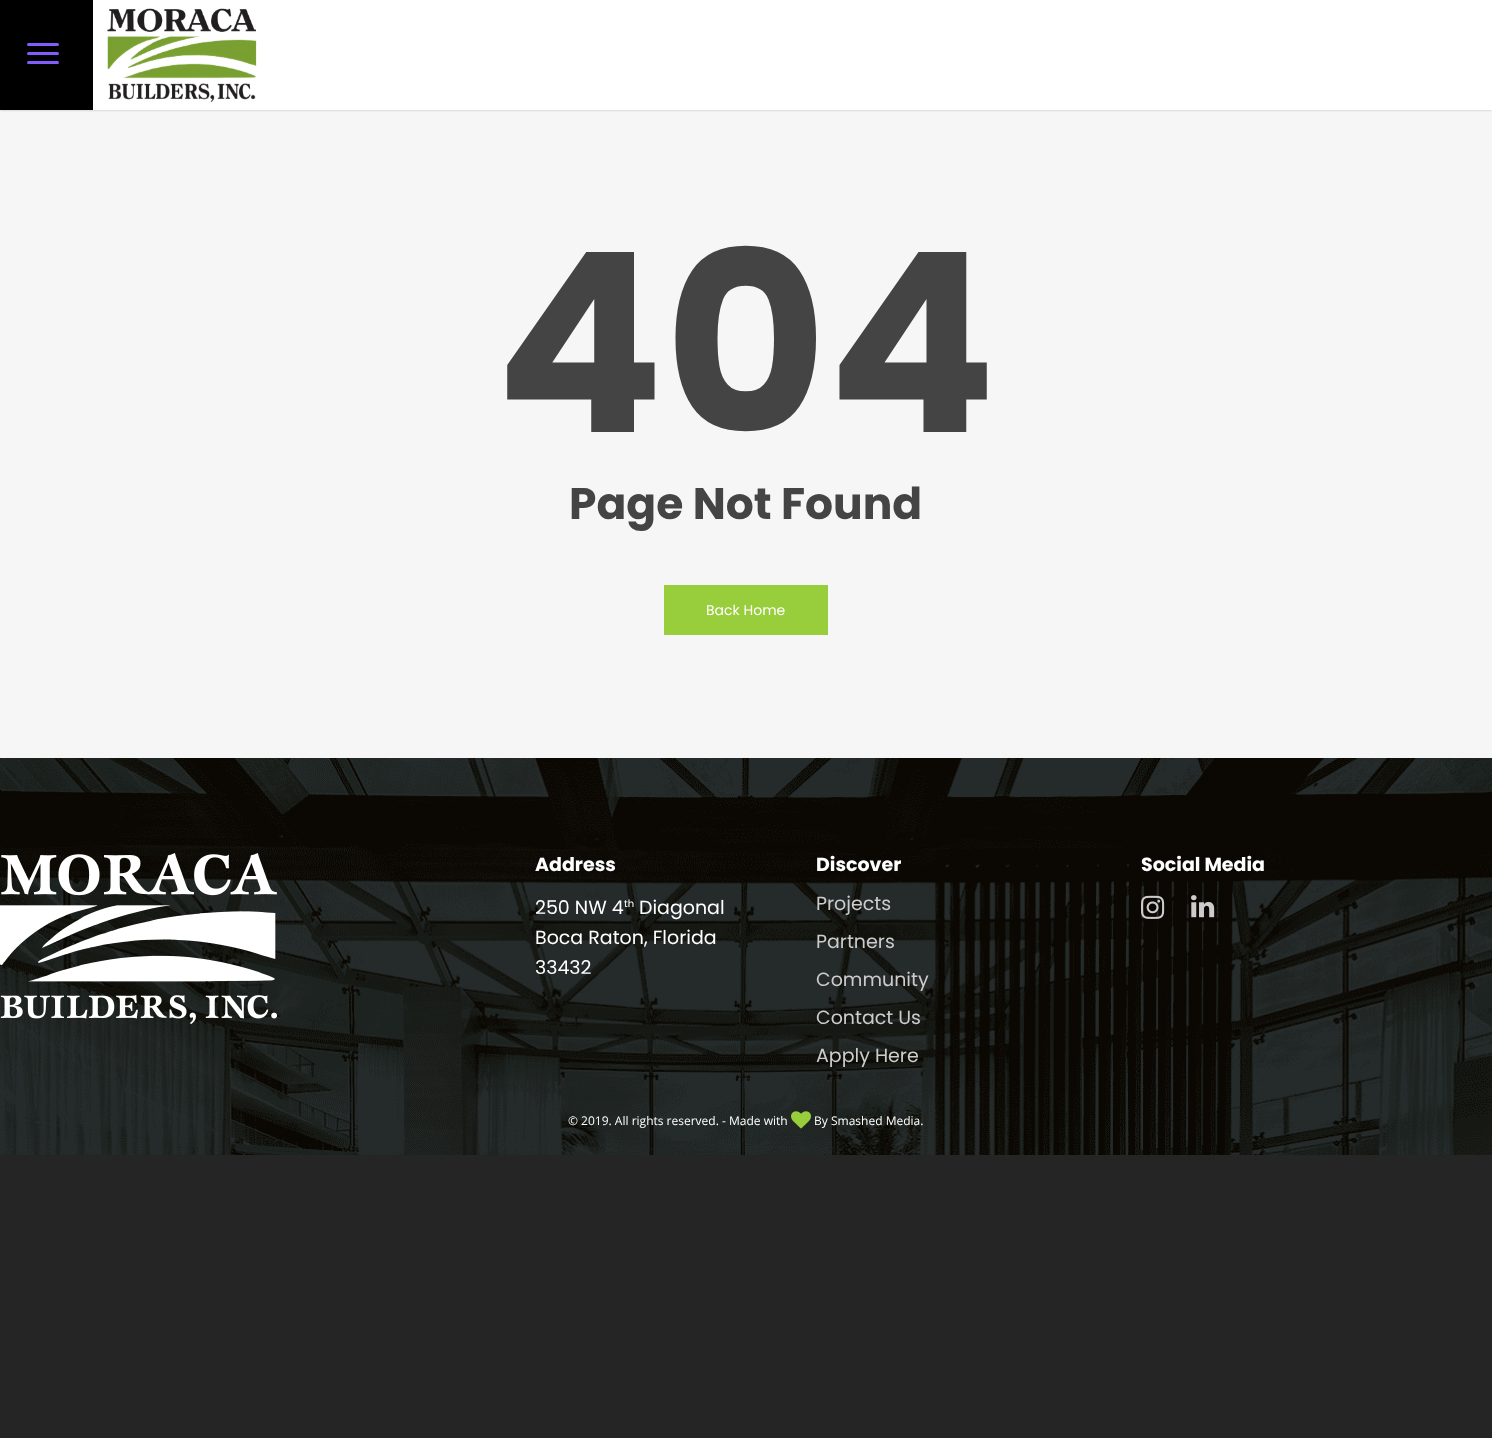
<svg xmlns="http://www.w3.org/2000/svg" xmlns:xlink="http://www.w3.org/1999/xlink" width="1492" height="1438" viewBox="0 0 1492 1438">
<style>
.cls-1{font:bold 250px Poppins;fill:#444444}
.cls-2{font:bold 44px Poppins;fill:#444444}
.cls-3{font:14px Poppins;fill:#ffffff}
.cls-4{font:bold 19px Poppins;fill:#ffffff}
.cls-5{font:19px Poppins;fill:#ffffff}
.cls-6{font:10px Poppins;fill:#ffffff}
.cls-7{font:19px Poppins;fill:#cccccc}
.cls-8{font:12px Open Sans;fill:#ffffff}
</style>
<defs>
<clipPath id="clip1"><rect x="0" y="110" width="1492" height="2"/></clipPath>
</defs>
<rect width="100%" height="100%" fill="#252525"/>
<rect fill="#ffffff" x="93" y="0" width="1399" height="110"/>
<rect fill="#f6f6f6" x="0" y="110" width="1492" height="648"/>
<g clip-path="url(#clip1)">
<rect fill="#000000" fill-opacity="0.22" filter="blur(1.5px)" x="0" y="0" width="1492" height="110"/>
</g>
<rect fill="#000000" x="0" y="0" width="93" height="110"/>
<rect fill="#825cff" x="27" y="43" width="32" height="3" rx="1.5"/>
<rect fill="#825cff" x="27" y="61" width="32" height="3" rx="1.5"/>
<rect fill="#825cff" x="27" y="52" width="32" height="3" rx="1.5"/>
<image xlink:href="image0.png" x="107" y="8" width="150" height="95"/>
<rect fill="#98cd3b" x="664" y="585" width="164" height="50"/>
<image xlink:href="image1.png" x="0" y="758" width="1492" height="397"/>
<image xlink:href="image2.png" x="0" y="853" width="277" height="171"/>
<image xlink:href="image3.png" x="1141" y="895" width="24" height="24"/>
<image xlink:href="image4.png" x="1191" y="895" width="24" height="23"/>
<image xlink:href="image5.png" x="791" y="1111" width="20" height="18"/>
<text class="cls-1" x="495" y="432">404</text>
<text class="cls-2" x="569" y="519">Page Not Found</text>
<text class="cls-3" x="706" y="615">Back Home</text>
<text class="cls-4" x="535" y="871">Address</text>
<text class="cls-5" x="535" y="914">250 NW 4</text>
<text class="cls-6" x="624" y="907">th</text>
<text class="cls-5" x="639" y="914">Diagonal</text>
<text class="cls-5"><tspan x="535" y="944">Boca Raton, Florida</tspan><tspan x="535" y="974">33432</tspan></text>
<text class="cls-4" x="816" y="871">Discover</text>
<text class="cls-7" x="816" y="910">Projects</text>
<text class="cls-7" x="816" y="948">Partners</text>
<text class="cls-7" x="816" y="986">Community</text>
<text class="cls-7" x="816" y="1024">Contact Us</text>
<text class="cls-7" x="816" y="1062">Apply Here</text>
<text class="cls-4" x="1141" y="871">Social Media</text>
<text class="cls-8" x="568" y="1125">© 2019. All rights reserved. - Made with</text>
<text class="cls-8" x="814" y="1125">By Smashed Media.</text>
</svg>
